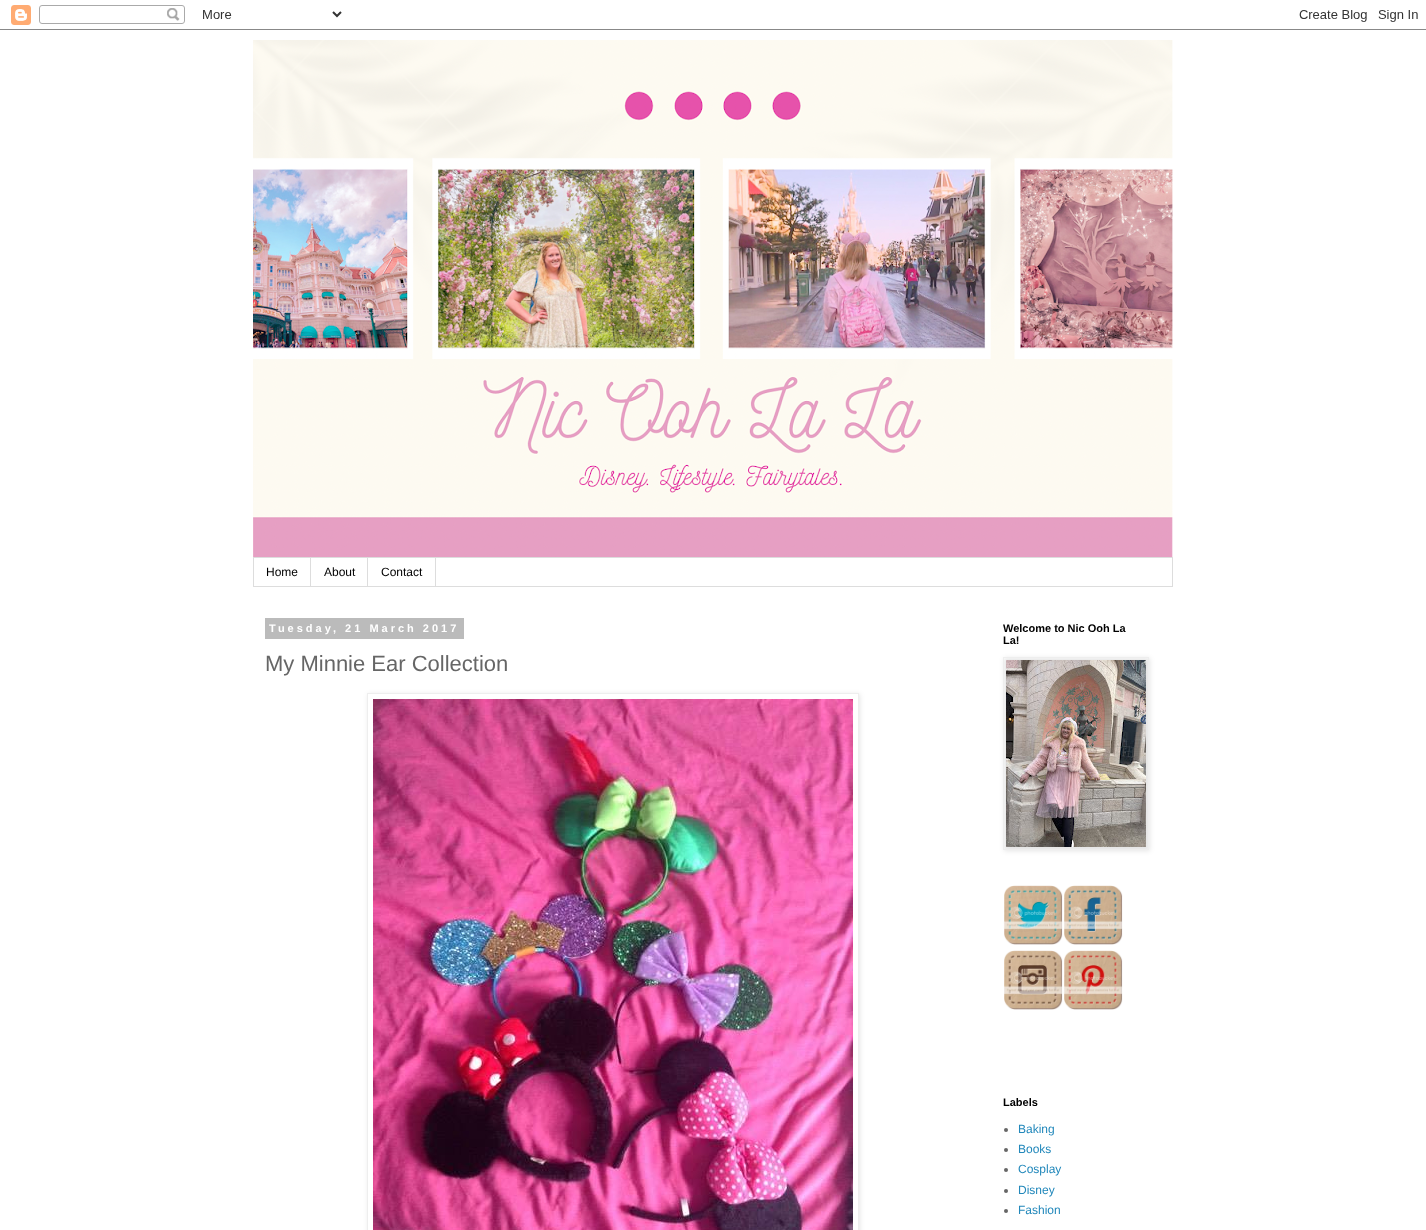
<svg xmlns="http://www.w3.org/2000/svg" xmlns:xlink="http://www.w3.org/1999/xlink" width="1426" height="1230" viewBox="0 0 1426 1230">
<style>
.cls-1{font:12px Liberation Sans;fill:#000000}
.cls-2{font:bold 11px Liberation Sans;letter-spacing:3px;fill:#ffffff}
.cls-3{font:22px Liberation Sans;fill:#666666}
.cls-4{font:bold 11px Liberation Sans;fill:#000000}
.cls-5{font:12px Liberation Sans;fill:#2288bb}
</style>
<defs>
<clipPath id="clip1"><path d="M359 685H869V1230H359ZM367 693H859V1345H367Z" clip-rule="evenodd"/></clipPath>
</defs>
<rect width="100%" height="100%" fill="#ffffff"/>
<image xlink:href="image0.png" x="0" y="5" width="1426" height="25"/>
<image xlink:href="image1.png" x="253" y="40" width="920" height="517"/>
<rect fill="none" stroke="#dddddd" x="253.5" y="557.5" width="919" height="29"/>
<rect fill="#dddddd" x="310" y="558" width="1" height="28"/>
<rect fill="#dddddd" x="367" y="558" width="1" height="28"/>
<rect fill="#dddddd" x="435" y="558" width="1" height="28"/>
<rect fill="#bbbbbb" x="265" y="618" width="199" height="21"/>
<g clip-path="url(#clip1)">
<rect fill="#000000" fill-opacity="0.1" filter="blur(2.5px)" x="368" y="694" width="492" height="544"/>
</g>
<rect fill="none" stroke="#eeeeee" x="367.5" y="693.5" width="491" height="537"/>
<image xlink:href="image2.png" x="373" y="699" width="480" height="531"/>
<rect fill="#000000" fill-opacity="0.1" filter="blur(2.5px)" x="1004" y="658" width="146" height="193"/>
<rect fill="none" stroke="#eeeeee" x="1003.5" y="657.5" width="145" height="192"/>
<image xlink:href="image3.png" x="1006" y="660" width="140" height="187"/>
<image xlink:href="image4.png" x="1003" y="885" width="60" height="60"/>
<image xlink:href="image5.png" x="1064" y="885" width="59" height="60"/>
<image xlink:href="image6.png" x="1004" y="950" width="59" height="60"/>
<image xlink:href="image7.png" x="1063" y="950" width="60" height="60"/>
<circle fill="#666666" cx="1006" cy="1130" r="2"/>
<circle fill="#666666" cx="1006" cy="1150" r="2"/>
<circle fill="#666666" cx="1006" cy="1170" r="2"/>
<circle fill="#666666" cx="1006" cy="1191" r="2"/>
<circle fill="#666666" cx="1006" cy="1211" r="2"/>
<text class="cls-1" x="266" y="576">Home</text>
<text class="cls-1" x="324" y="576">About</text>
<text class="cls-1" x="381" y="576">Contact</text>
<text class="cls-2" x="269" y="632">Tuesday, 21 March 2017</text>
<text class="cls-3" x="265" y="671">My Minnie Ear Collection</text>
<text class="cls-4"><tspan x="1003" y="632">Welcome to Nic Ooh La</tspan><tspan x="1003" y="644">La!</tspan></text>
<text class="cls-4" x="1003" y="1106">Labels</text>
<text class="cls-5"><tspan x="1018" y="1133">Baking</tspan><tspan x="1018" y="1153">Books</tspan><tspan x="1018" y="1173">Cosplay</tspan><tspan x="1018" y="1194">Disney</tspan><tspan x="1018" y="1214">Fashion</tspan></text>
</svg>
